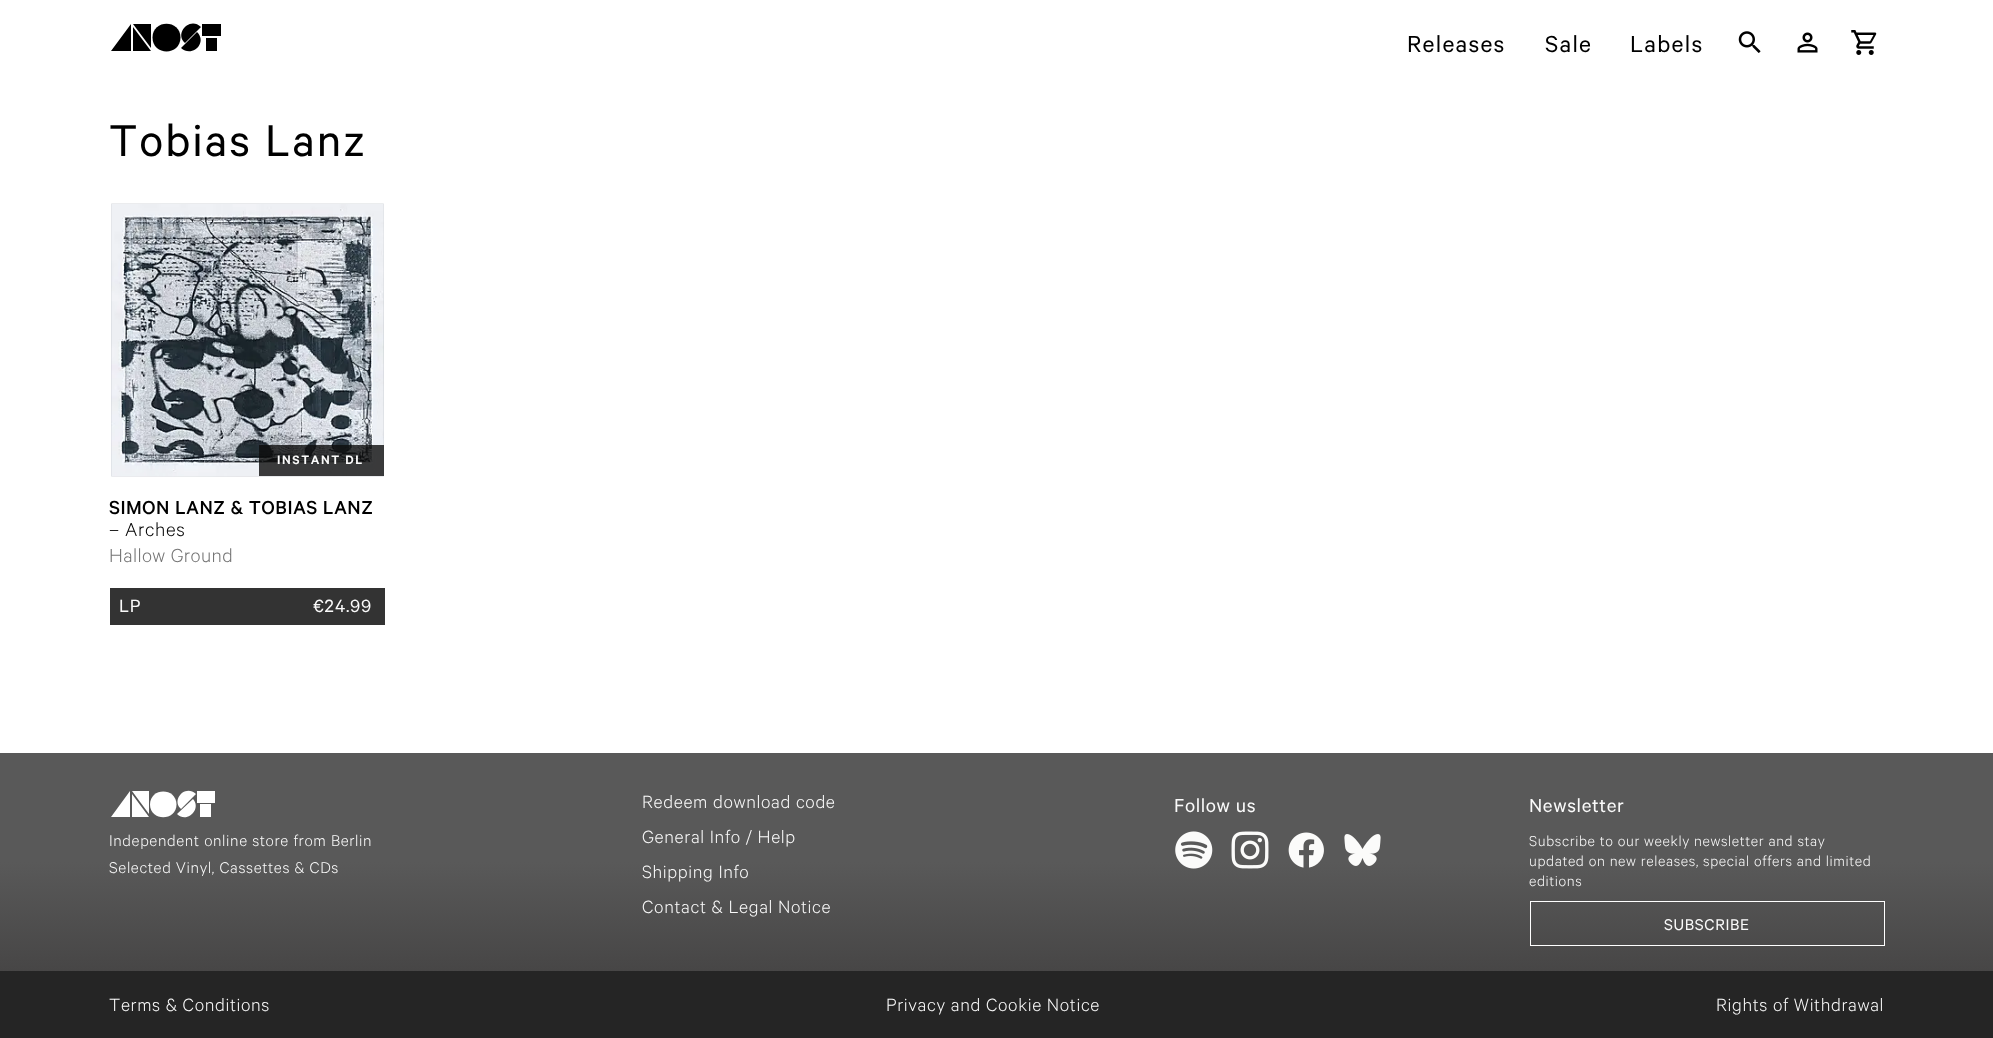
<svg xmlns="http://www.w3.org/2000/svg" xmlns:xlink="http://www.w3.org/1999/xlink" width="1993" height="1038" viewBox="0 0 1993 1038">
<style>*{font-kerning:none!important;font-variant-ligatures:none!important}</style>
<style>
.cls-1{font:26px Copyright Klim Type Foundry;letter-spacing:1.25px;fill:#000000}
.cls-2{font:50px Copyright Klim Type Foundry;letter-spacing:2px;fill:#000000}
.cls-3{font:600 13.75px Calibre;letter-spacing:1.6px;fill:#fafafa}
.cls-4{font:500 21.25px Calibre;letter-spacing:0.4px;fill:#000000}
.cls-5{font:300 21.25px Calibre;letter-spacing:0.62px;fill:#000000}
.cls-6{font:300 21.25px Calibre;letter-spacing:0.4px;fill:#757575}
.cls-7{font:20px Copyright Klim Type Foundry;letter-spacing:0.62px;fill:#fafafa}
.cls-8{font:20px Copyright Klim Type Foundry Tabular;letter-spacing:0.62px;fill:#fafafa}
.cls-9{font:300 17.5px Calibre;letter-spacing:0.62px;fill:#fafafa}
.cls-10{font:300 20px Calibre;letter-spacing:0.62px;fill:#fafafa}
.cls-11{font:21.25px Copyright Klim Type Foundry;letter-spacing:0.62px;fill:#fafafa}
.cls-12{font:300 16.25px Calibre;letter-spacing:0.62px;fill:#fafafa}
.cls-13{font:17.5px Copyright Klim Type Foundry;letter-spacing:0.62px;fill:#fafafa}
</style>
<defs>
<linearGradient id="g1" gradientUnits="userSpaceOnUse" x1="997" y1="971" x2="997" y2="753"><stop offset="0" stop-color="#474646"/><stop offset="0.5" stop-color="#595959"/></linearGradient>
</defs>
<rect width="100%" height="100%" fill="#ffffff"/>
<path fill="#000000" d="M180.5 37.5C180.5 56 152.5 56 152.5 37.5C152.5 19 180.5 19 180.5 37.5"/>
<path fill="#000000" d="M201 27C190 16 174 33 185 43ZM197 32C208 43 192 58 181 48ZM206 38H217V51H206ZM202 24H221V36H202ZM133 27V51H151ZM151 48V24H133ZM111 51H131V24Z"/>
<image xlink:href="image0.png" x="1738" y="31" width="23" height="22"/>
<image xlink:href="image1.png" x="1797" y="32" width="21" height="21"/>
<image xlink:href="image2.png" x="1851" y="30" width="26" height="25"/>
<image xlink:href="image3.png" x="111" y="203" width="273" height="274"/>
<image xlink:href="image4.png" x="111" y="204" width="273" height="273"/>
<rect fill="#0d0d0d" fill-opacity="0.8" x="259" y="445" width="125" height="31"/>
<rect fill="#333333" x="110" y="588" width="275" height="37"/>
<rect fill="url(#g1)" x="0" y="753" width="1993" height="218"/>
<path fill="#ffffff" d="M176.5 804.5C176.5 821.5 150 821.5 150 804.5C150 787 176.5 787 176.5 804.5"/>
<path fill="#ffffff" d="M196 794C185 784 171 800 181 809ZM193 799C202 809 187 824 177 814ZM200 804H211V817H200ZM197 791H215V803H197ZM132 794V817H149ZM149 814V791H132ZM111 817H130V791Z"/>
<image xlink:href="image5.png" x="1175" y="831" width="38" height="38"/>
<image xlink:href="image6.png" x="1231" y="831" width="38" height="38"/>
<image xlink:href="image7.png" x="1288" y="832" width="36" height="36"/>
<image xlink:href="image8.png" x="1344" y="834" width="37" height="32"/>
<rect fill="none" stroke="#ffffff" x="1530.5" y="901.5" width="354" height="44"/>
<rect fill="#252525" x="0" y="971" width="1993" height="67"/>
<text class="cls-1" x="1407" y="52">Releases</text>
<text class="cls-1" x="1545" y="52">Sale</text>
<text class="cls-1" x="1630" y="52">Labels</text>
<text class="cls-2" x="109" y="156">Tobias Lanz</text>
<text class="cls-3" x="277" y="464">INSTANT DL</text>
<text class="cls-4" x="109" y="514">SIMON LANZ &amp; TOBIAS LANZ</text>
<text class="cls-5" x="109" y="536">– Arches</text>
<text class="cls-6" x="109" y="562">Hallow Ground</text>
<text class="cls-7" x="119" y="612">LP</text>
<text class="cls-7" x="313" y="612">€</text>
<text class="cls-8" x="324" y="612">24.99</text>
<text class="cls-9"><tspan x="109" y="846">Independent online store from Berlin</tspan><tspan x="109" y="873">Selected Vinyl, Cassettes &amp; CDs</tspan></text>
<text class="cls-10"><tspan x="642" y="808">Redeem download code</tspan><tspan x="642" y="843">General Info / Help</tspan><tspan x="642" y="878">Shipping Info</tspan><tspan x="642" y="913">Contact &amp; Legal Notice</tspan></text>
<text class="cls-11" x="1174" y="812">Follow us</text>
<text class="cls-11" x="1529" y="812">Newsletter</text>
<text class="cls-12"><tspan x="1529" y="846">Subscribe to our weekly newsletter and stay</tspan><tspan x="1529" y="866">updated on new releases, special offers and limited</tspan><tspan x="1529" y="886">editions</tspan></text>
<text class="cls-13" x="1664" y="930">SUBSCRIBE</text>
<text class="cls-10" x="109" y="1011">Terms &amp; Conditions</text>
<text class="cls-10" x="886" y="1011">Privacy and Cookie Notice</text>
<text class="cls-10" x="1716" y="1011">Rights of Withdrawal</text>
</svg>
